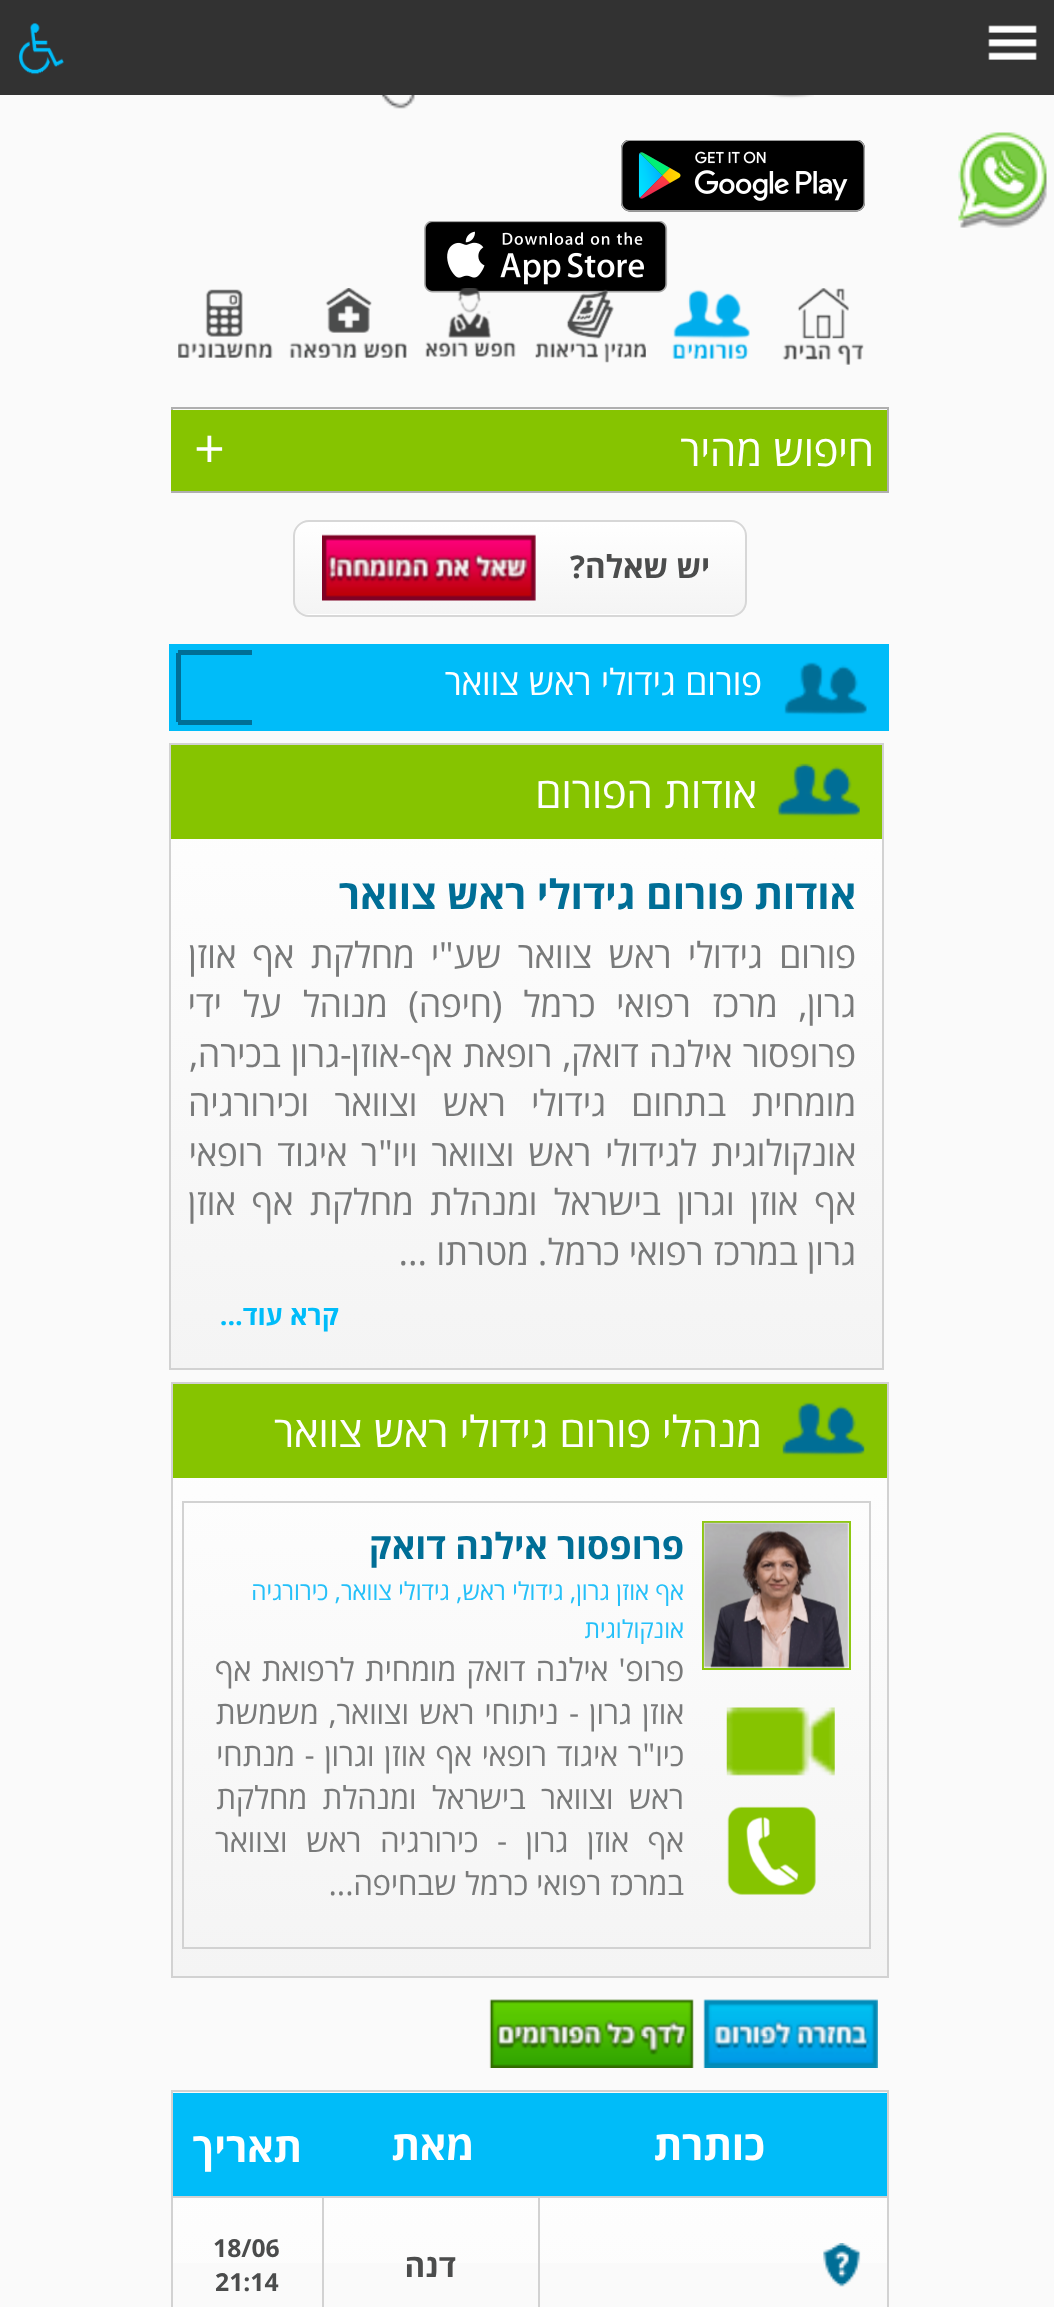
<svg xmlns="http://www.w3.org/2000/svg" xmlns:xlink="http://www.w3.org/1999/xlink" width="1054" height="2307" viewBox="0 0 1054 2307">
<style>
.cls-1{font:42.75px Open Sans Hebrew;direction:rtl;fill:#ffffff}
.cls-2{font:54px Open Sans Hebrew;fill:#ffffff}
.cls-3{font:bold 31.5px Open Sans Hebrew;direction:rtl;fill:#4b4c4c}
.cls-4{font:36px Open Sans Hebrew;direction:rtl;fill:#ffffff}
.cls-5{font:bold 40.5px Open Sans Hebrew;direction:rtl;fill:#006e96}
.cls-6{font:36px Open Sans Hebrew;direction:rtl;fill:#797a7a}
.cls-7{font:bold 27px Open Sans Hebrew;direction:rtl;fill:#00bcf9}
.cls-8{font:bold 36px Open Sans Hebrew;direction:rtl;fill:#006e96}
.cls-9{font:24.75px Open Sans Hebrew;direction:rtl;fill:#25c0f9}
.cls-10{font:31.5px Open Sans Hebrew;direction:rtl;fill:#797a7a}
.cls-11{font:bold 40.5px Open Sans Hebrew;direction:rtl;fill:#ffffff}
.cls-12{font:bold 24.75px Open Sans Hebrew;fill:#4b4c4c}
</style>
<defs>
<clipPath id="clip1"><rect x="293" y="520" width="454" height="97" rx="16"/></clipPath>
<linearGradient id="g1" gradientUnits="userSpaceOnUse" x1="520" y1="522" x2="520" y2="614"><stop offset="0" stop-color="#ffffff"/><stop offset="1" stop-color="#f4f4f4"/></linearGradient>
<linearGradient id="g2" gradientUnits="userSpaceOnUse" x1="520" y1="614" x2="520" y2="707"><stop offset="0" stop-color="#ffffff"/><stop offset="1" stop-color="#f4f4f4"/></linearGradient>
<linearGradient id="g3" gradientUnits="userSpaceOnUse" x1="526" y1="745" x2="527" y2="1368"><stop offset="0" stop-color="#ffffff"/><stop offset="1" stop-color="#f4f4f4"/></linearGradient>
<linearGradient id="g4" gradientUnits="userSpaceOnUse" x1="530" y1="1384" x2="530" y2="1976"><stop offset="0" stop-color="#ffffff"/><stop offset="1" stop-color="#f4f4f4"/></linearGradient>
<linearGradient id="g5" gradientUnits="userSpaceOnUse" x1="530" y1="2093" x2="530" y2="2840"><stop offset="0" stop-color="#ffffff"/><stop offset="1" stop-color="#f4f4f4"/></linearGradient>
</defs>
<rect width="100%" height="100%" fill="#fafafa"/>
<rect fill="#323232" x="0" y="0" width="1054" height="95"/>
<image xlink:href="image0.png" x="988" y="25" width="49" height="35"/>
<image xlink:href="image1.png" x="958" y="132" width="89" height="96"/>
<image xlink:href="image2.png" x="18" y="23" width="46" height="52"/>
<image xlink:href="image3.png" x="380" y="95" width="434" height="14"/>
<image xlink:href="image4.png" x="621" y="140" width="244" height="72"/>
<image xlink:href="image5.png" x="424" y="221" width="244" height="72"/>
<image xlink:href="image6.png" x="782" y="288" width="82" height="77"/>
<image xlink:href="image7.png" x="672" y="289" width="78" height="71"/>
<image xlink:href="image8.png" x="535" y="289" width="111" height="74"/>
<image xlink:href="image9.png" x="425" y="288" width="91" height="70"/>
<image xlink:href="image10.png" x="289" y="288" width="118" height="70"/>
<image xlink:href="image11.png" x="178" y="289" width="95" height="69"/>
<rect fill="none" stroke="#afafaf" stroke-width="2" x="172" y="408" width="716" height="84"/>
<rect fill="#86c400" x="171" y="410" width="716" height="81"/>
<g clip-path="url(#clip1)">
<rect fill="url(#g1)" x="293" y="522" width="454" height="92"/>
<rect fill="url(#g2)" x="293" y="614" width="454" height="3"/>
</g>
<rect fill="none" stroke="#d7d7d7" stroke-width="2" x="294" y="521" width="452" height="95" rx="15"/>
<image xlink:href="image12.png" x="322" y="534" width="214" height="67"/>
<rect fill="#00bcf9" x="169" y="644" width="720" height="87"/>
<image xlink:href="image13.png" x="784" y="662" width="83" height="53"/>
<rect fill="#006e96" x="178" y="650" width="74" height="5"/>
<rect fill="#006e96" x="178" y="720" width="74" height="5"/>
<rect fill="#006e96" x="176" y="653" width="5" height="69"/>
<rect fill="url(#g3)" x="171" y="839" width="711" height="529"/>
<rect fill="none" stroke="#d2d2d2" stroke-width="2" x="170" y="744" width="713" height="625"/>
<rect fill="#86c400" x="171" y="745" width="711" height="94"/>
<image xlink:href="image14.png" x="777" y="763" width="83" height="54"/>
<rect fill="url(#g4)" x="173" y="1478" width="714" height="498"/>
<rect fill="none" stroke="#d2d2d2" stroke-width="2" x="172" y="1383" width="716" height="594"/>
<rect fill="#86c400" x="173" y="1384" width="714" height="94"/>
<image xlink:href="image15.png" x="782" y="1402" width="83" height="54"/>
<rect fill="none" stroke="#d2d2d2" stroke-width="2" x="183" y="1502" width="687" height="446"/>
<rect fill="none" stroke="#8ec811" stroke-width="2" x="703" y="1522" width="147" height="147"/>
<image xlink:href="image16.png" x="703" y="1522" width="146" height="146"/>
<image xlink:href="image17.png" x="726" y="1707" width="109" height="69"/>
<image xlink:href="image18.png" x="727" y="1806" width="89" height="89"/>
<image xlink:href="image19.png" x="703" y="1999" width="175" height="69"/>
<image xlink:href="image20.png" x="489" y="1999" width="205" height="69"/>
<rect fill="none" stroke="#d2d2d2" stroke-width="2" x="172" y="2091" width="716" height="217"/>
<rect fill="url(#g5)" x="173" y="2198" width="714" height="65"/>
<rect fill="#00bcf9" x="173" y="2093" width="714" height="103"/>
<rect fill="#d2d2d2" x="173" y="2196" width="714" height="2"/>
<rect fill="#d2d2d2" x="538" y="2196" width="2" height="111"/>
<image xlink:href="image21.png" x="823" y="2243" width="38" height="44"/>
<rect fill="#d2d2d2" x="322" y="2196" width="2" height="111"/>
<text class="cls-1" x="874" y="466">חיפוש מהיר</text>
<text class="cls-2" x="194" y="468">+</text>
<text class="cls-3" x="710" y="578">יש שאלה?</text>
<text class="cls-4" x="762" y="695">פורום גידולי ראש צוואר</text>
<text class="cls-1" x="757" y="808">אודות הפורום</text>
<text class="cls-5" x="856" y="909">אודות פורום גידולי ראש צוואר</text>
<text class="cls-6"><tspan x="856" y="968" word-spacing="7">פורום גידולי ראש צוואר שע"י מחלקת אף אוזן</tspan><tspan x="856" y="1017" word-spacing="11.5">גרון, מרכז רפואי כרמל (חיפה) מנוהל על ידי</tspan><tspan x="856" y="1067" word-spacing="1">פרופסור אילנה דואק, רופאת אף-אוזן-גרון בכירה,</tspan><tspan x="856" y="1116" word-spacing="16">מומחית בתחום גידולי ראש וצוואר וכירורגיה</tspan><tspan x="856" y="1166" word-spacing="4.5">אונקולוגית לגידולי ראש וצוואר ויו"ר איגוד רופאי</tspan><tspan x="856" y="1215" word-spacing="6.75">אף אוזן וגרון בישראל ומנהלת מחלקת אף אוזן</tspan><tspan x="856" y="1265">גרון במרכז רפואי כרמל. מטרתו ...</tspan></text>
<text class="cls-7" x="339" y="1325">קרא עוד...</text>
<text class="cls-1" x="762" y="1447">מנהלי פורום גידולי ראש צוואר</text>
<text class="cls-8" x="684" y="1559">פרופסור אילנה דואק</text>
<text class="cls-9"><tspan x="684" y="1600">אף אוזן גרון, גידולי ראש, גידולי צוואר, כירורגיה</tspan><tspan x="684" y="1638">אונקולוגית</tspan></text>
<text class="cls-10"><tspan x="684" y="1681" word-spacing="2">פרופ' אילנה דואק מומחית לרפואת אף</tspan><tspan x="684" y="1724" word-spacing="2">אוזן גרון - ניתוחי ראש וצוואר, משמשת</tspan><tspan x="684" y="1766" word-spacing="1.5">כיו"ר איגוד רופאי אף אוזן וגרון - מנתחי</tspan><tspan x="684" y="1809" word-spacing="7">ראש וצוואר בישראל ומנהלת מחלקת</tspan><tspan x="684" y="1852" word-spacing="10.5">אף אוזן גרון - כירורגיה ראש וצוואר</tspan><tspan x="684" y="1895">במרכז רפואי כרמל שבחיפה...</tspan></text>
<text class="cls-11" x="765" y="2160">כותרת</text>
<text class="cls-11" x="474" y="2160">מאת</text>
<text class="cls-11" x="302" y="2162">תאריך</text>
<text class="cls-3" x="456" y="2277">דנה</text>
<text class="cls-12" x="213" y="2257">18/06</text>
<text class="cls-12" x="215" y="2291">21:14</text>
</svg>
